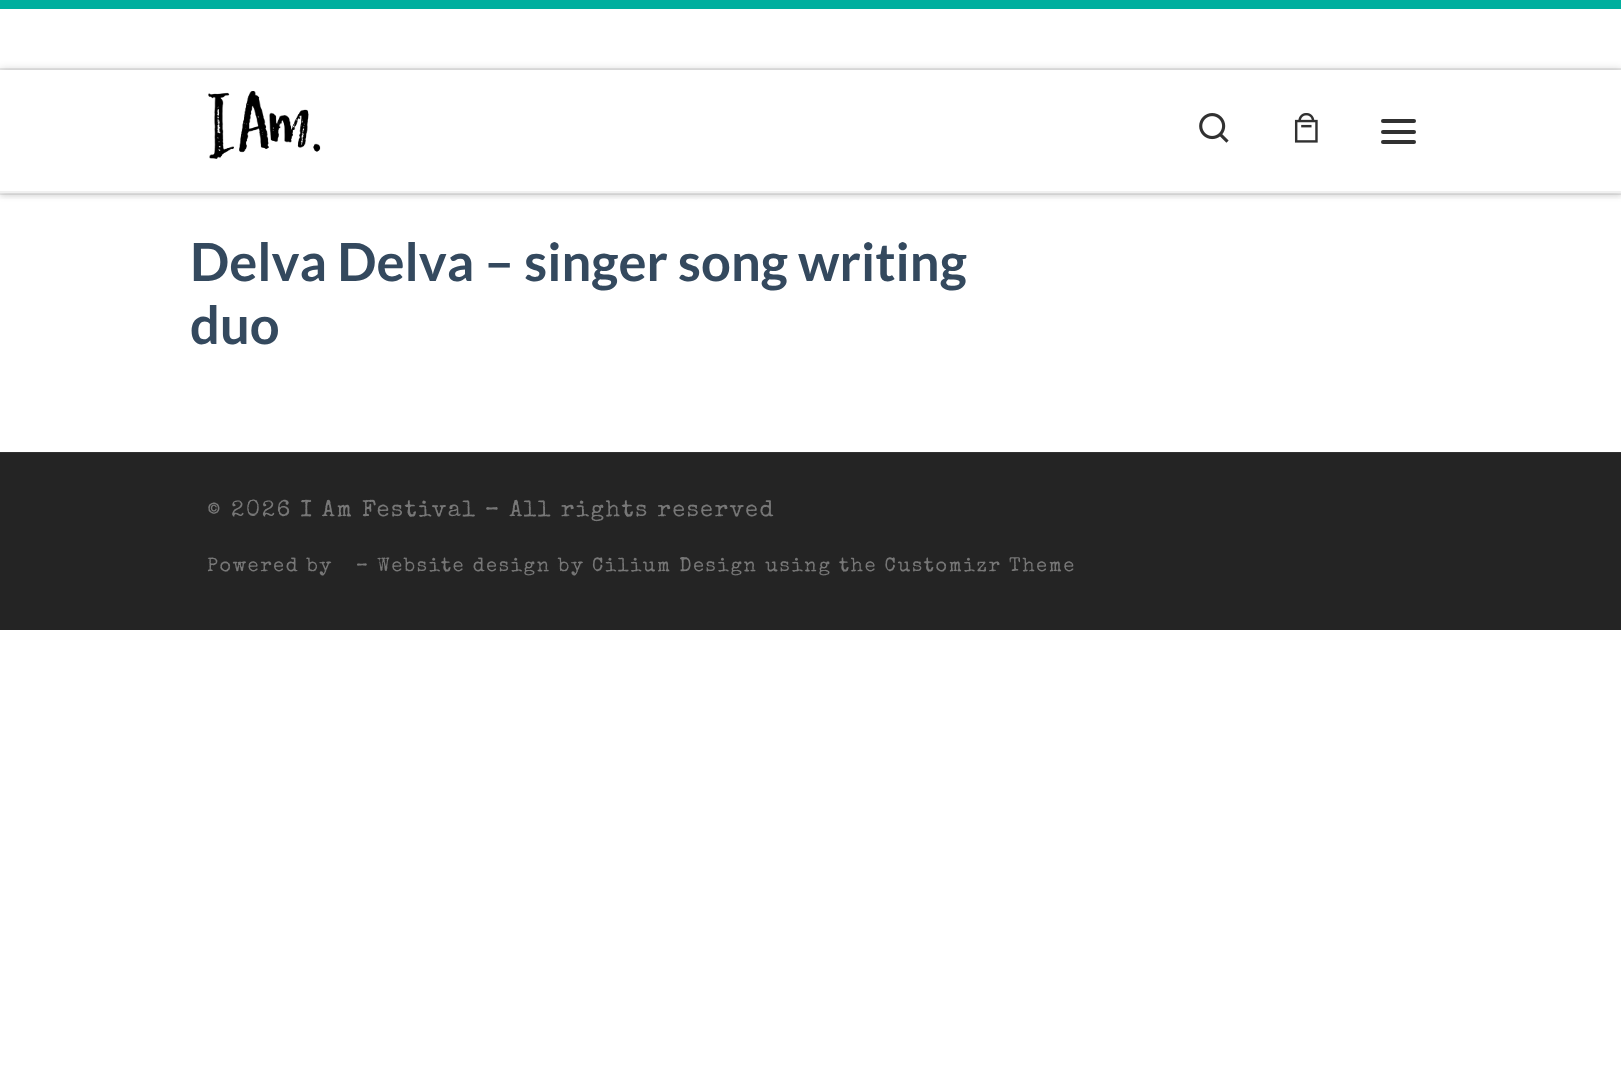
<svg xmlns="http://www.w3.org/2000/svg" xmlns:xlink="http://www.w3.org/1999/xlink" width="1621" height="1069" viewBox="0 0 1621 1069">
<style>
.cls-1{font:bold 52.5px Lato;fill:#34495e}
.cls-2{font:23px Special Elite;letter-spacing:1.75px;fill:#777777}
.cls-3{font:19.6px Special Elite;letter-spacing:1.75px;fill:#777777}
</style>
<defs>
<clipPath id="clip1"><rect x="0" y="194" width="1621" height="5"/></clipPath>
</defs>
<rect width="100%" height="100%" fill="#ffffff"/>
<g clip-path="url(#clip1)">
<rect fill="#666666" fill-opacity="0.08" filter="blur(2px)" x="0" y="4" width="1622" height="194"/>
</g>
<rect fill="#00af9e" x="0" y="0" width="1621" height="9"/>
<rect fill="#313131" fill-opacity="0.09" x="0" y="193" width="1621" height="2"/>
<rect fill="#ffffff" fill-opacity="0.15" x="0" y="193" width="1621" height="1"/>
<rect fill="#ececec" x="0" y="68" width="1621" height="2"/>
<rect fill="#000000" fill-opacity="0.2" filter="blur(4.5px)" x="0" y="70" width="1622" height="123"/>
<rect fill="#ffffff" x="0" y="70" width="1621" height="121"/>
<image xlink:href="image0.png" x="208" y="91" width="113" height="68"/>
<image xlink:href="image1.png" x="1199" y="113" width="30" height="30"/>
<image xlink:href="image2.png" x="1294" y="113" width="24" height="30"/>
<rect fill="#313131" x="1381" y="119" width="35" height="4" rx="2"/>
<rect fill="#313131" x="1381" y="130" width="35" height="4" rx="2"/>
<rect fill="#313131" x="1381" y="140" width="35" height="4" rx="2"/>
<rect fill="#f0f0f0" x="0" y="191" width="1621" height="2"/>
<rect fill="#313131" x="0" y="452" width="1621" height="1"/>
<rect fill="#242424" x="0" y="453" width="1621" height="177"/>
<text class="cls-1"><tspan x="190" y="281">Delva Delva – singer song writing</tspan><tspan x="190" y="344">duo</tspan></text>
<text class="cls-2" x="207" y="516">© 2026 I Am Festival – All rights reserved</text>
<text class="cls-3" x="207" y="571">Powered by</text>
<text class="cls-3" x="356" y="571">– Website design by Cilium Design using the Customizr Theme</text>
</svg>
